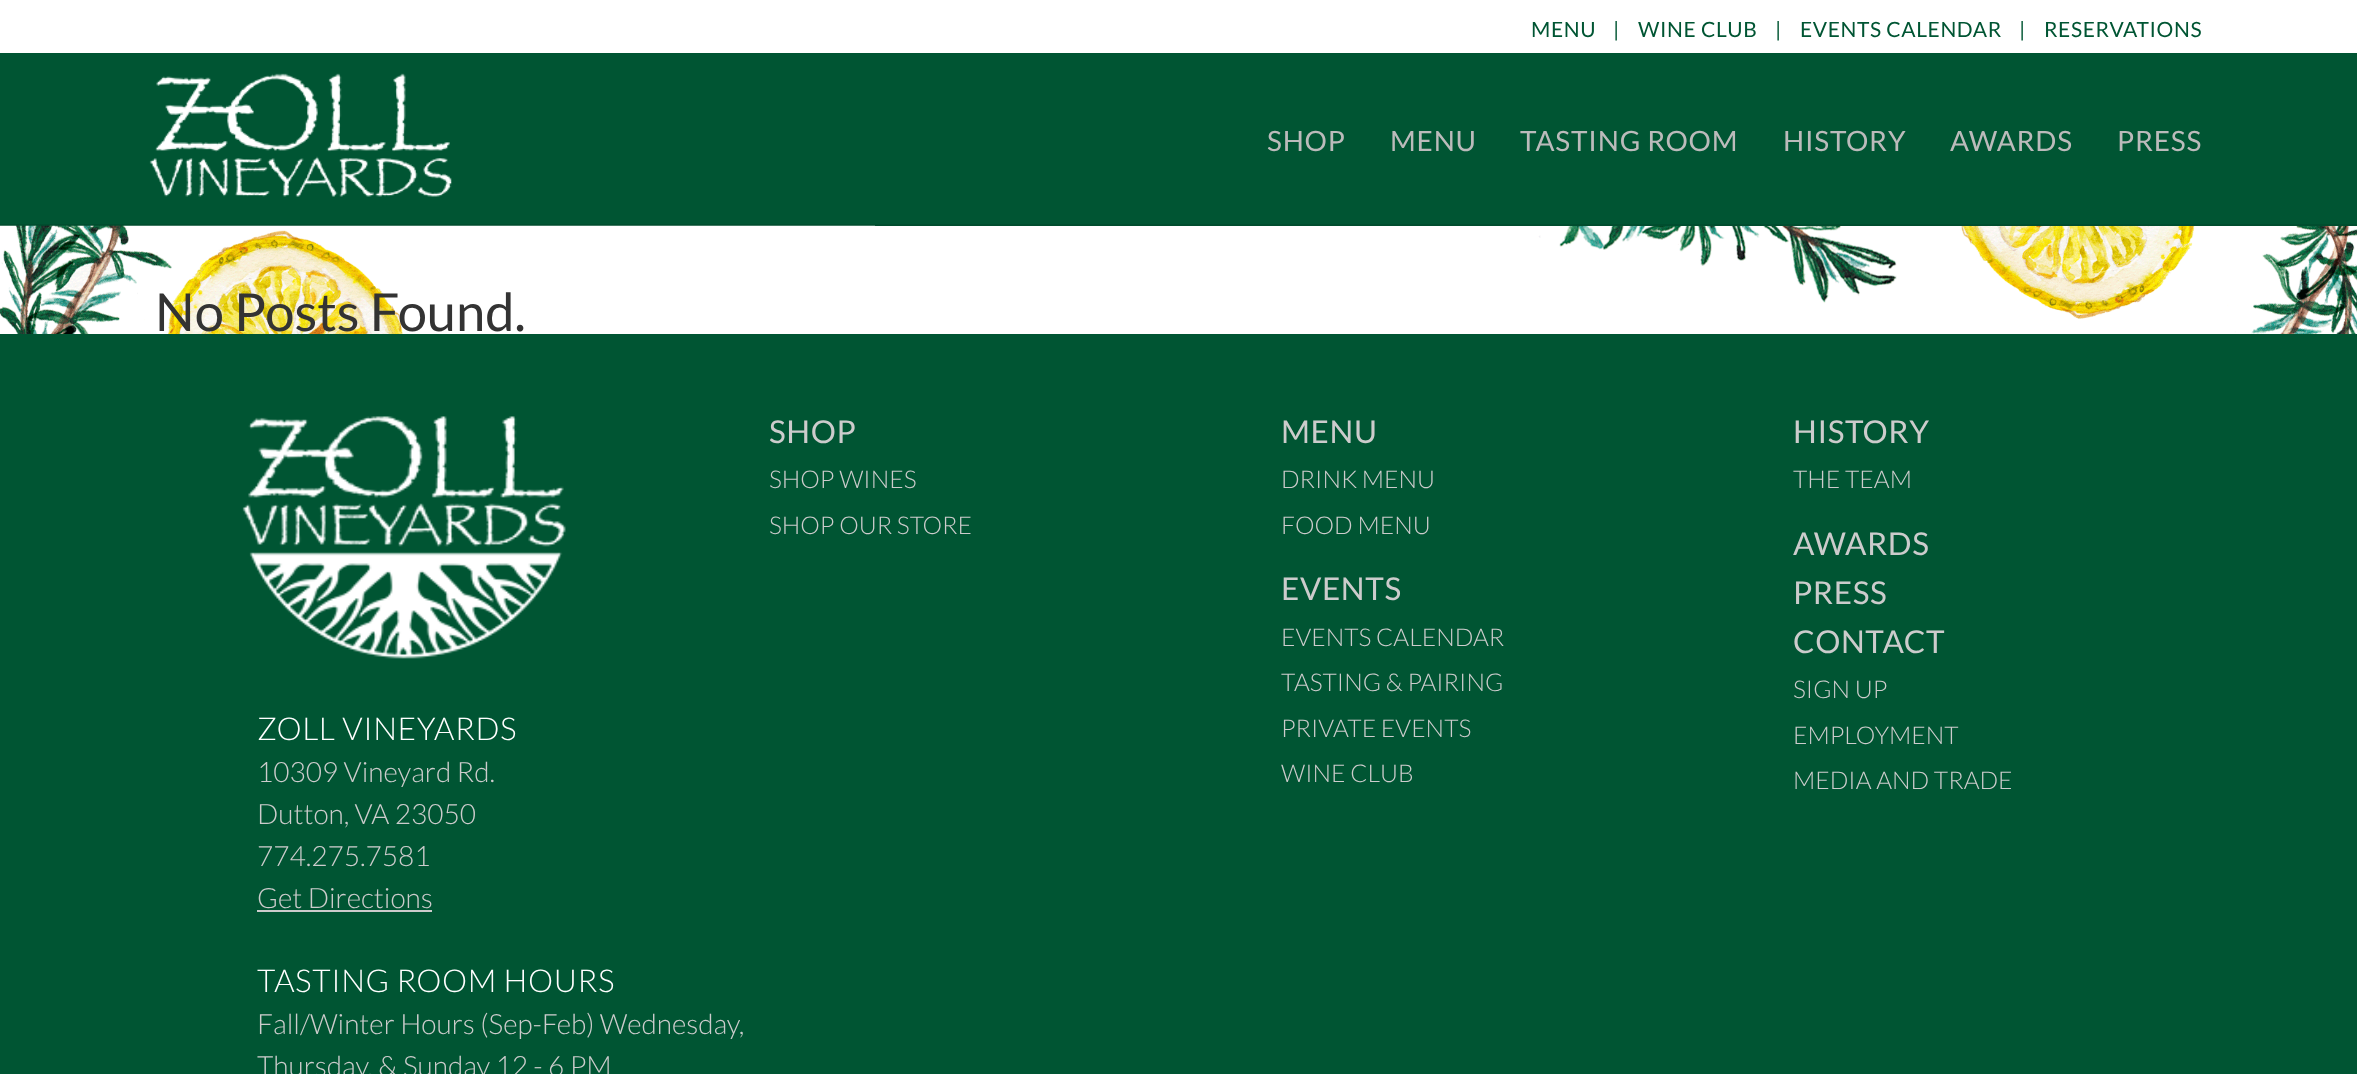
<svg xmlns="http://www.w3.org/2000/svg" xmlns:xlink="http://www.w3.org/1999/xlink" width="2357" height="1074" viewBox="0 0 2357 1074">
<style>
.cls-1{font:21px Lato;letter-spacing:0.6px;fill:#005533}
.cls-2{font:28px Lato;letter-spacing:0.8px;fill:#bbbbbb}
.cls-3{font:52.5px Lato;fill:#333333}
.cls-4{font:31.5px Lato;letter-spacing:0.6px;fill:#cccccc}
.cls-5{font:300 24.5px Lato;fill:#cccccc}
.cls-6{font:300 31.5px Lato;letter-spacing:0.6px;fill:#ffffff}
.cls-7{font:300 28px Lato;fill:#cccccc}
</style>
<rect width="100%" height="100%" fill="#ffffff"/>
<image xlink:href="image0.png" x="1497" y="226" width="860" height="108"/>
<rect fill="#005533" x="0" y="53" width="2357" height="171"/>
<rect fill="#004d2e" x="0" y="224" width="2357" height="2"/>
<image xlink:href="image1.png" x="149" y="73" width="303" height="124"/>
<image xlink:href="image2.png" x="0" y="225" width="875" height="109"/>
<rect fill="#005533" x="0" y="334" width="2357" height="740"/>
<image xlink:href="image3.png" x="242" y="416" width="324" height="243"/>
<rect fill="#cccccc" x="257" y="910" width="175" height="2"/>
<text class="cls-1" x="1531" y="37">MENU</text>
<text class="cls-1" x="1613" y="37">|</text>
<text class="cls-1" x="1638" y="37">WINE CLUB</text>
<text class="cls-1" x="1775" y="37">|</text>
<text class="cls-1" x="1800" y="37">EVENTS CALENDAR</text>
<text class="cls-1" x="2019" y="37">|</text>
<text class="cls-1" x="2044" y="37">RESERVATIONS</text>
<text class="cls-2" x="1267" y="151">SHOP</text>
<text class="cls-2" x="1390" y="151">MENU</text>
<text class="cls-2" x="1520" y="151">TASTING ROOM</text>
<text class="cls-2" x="1783" y="151">HISTORY</text>
<text class="cls-2" x="1950" y="151">AWARDS</text>
<text class="cls-2" x="2117" y="151">PRESS</text>
<text class="cls-3" x="155" y="331">No Posts Found.</text>
<text class="cls-4" x="769" y="443">SHOP</text>
<text class="cls-5"><tspan x="769" y="488">SHOP WINES</tspan><tspan x="769" y="534">SHOP OUR STORE</tspan></text>
<text class="cls-4" x="1281" y="443">MENU</text>
<text class="cls-5"><tspan x="1281" y="488">DRINK MENU</tspan><tspan x="1281" y="534">FOOD MENU</tspan></text>
<text class="cls-4" x="1281" y="600">EVENTS</text>
<text class="cls-5"><tspan x="1281" y="646">EVENTS CALENDAR</tspan><tspan x="1281" y="691">TASTING &amp; PAIRING</tspan><tspan x="1281" y="737">PRIVATE EVENTS</tspan><tspan x="1281" y="782">WINE CLUB</tspan></text>
<text class="cls-4" x="1793" y="443">HISTORY</text>
<text class="cls-5" x="1793" y="488">THE TEAM</text>
<text class="cls-4"><tspan x="1793" y="555">AWARDS</tspan><tspan x="1793" y="604">PRESS</tspan><tspan x="1793" y="653">CONTACT</tspan></text>
<text class="cls-5"><tspan x="1793" y="698">SIGN UP</tspan><tspan x="1793" y="744">EMPLOYMENT</tspan><tspan x="1793" y="789">MEDIA AND TRADE</tspan></text>
<text class="cls-6" x="257" y="740">ZOLL VINEYARDS</text>
<text class="cls-7"><tspan x="257" y="782">10309 Vineyard Rd.</tspan><tspan x="257" y="824">Dutton, VA 23050</tspan><tspan x="257" y="866">774.275.7581</tspan><tspan x="257" y="908">Get Directions</tspan></text>
<text class="cls-6" x="257" y="992">TASTING ROOM HOURS</text>
<text class="cls-7"><tspan x="257" y="1034">Fall/Winter Hours (Sep-Feb) Wednesday,</tspan><tspan x="257" y="1076">Thursday, &amp; Sunday 12 - 6 PM</tspan></text>
</svg>
